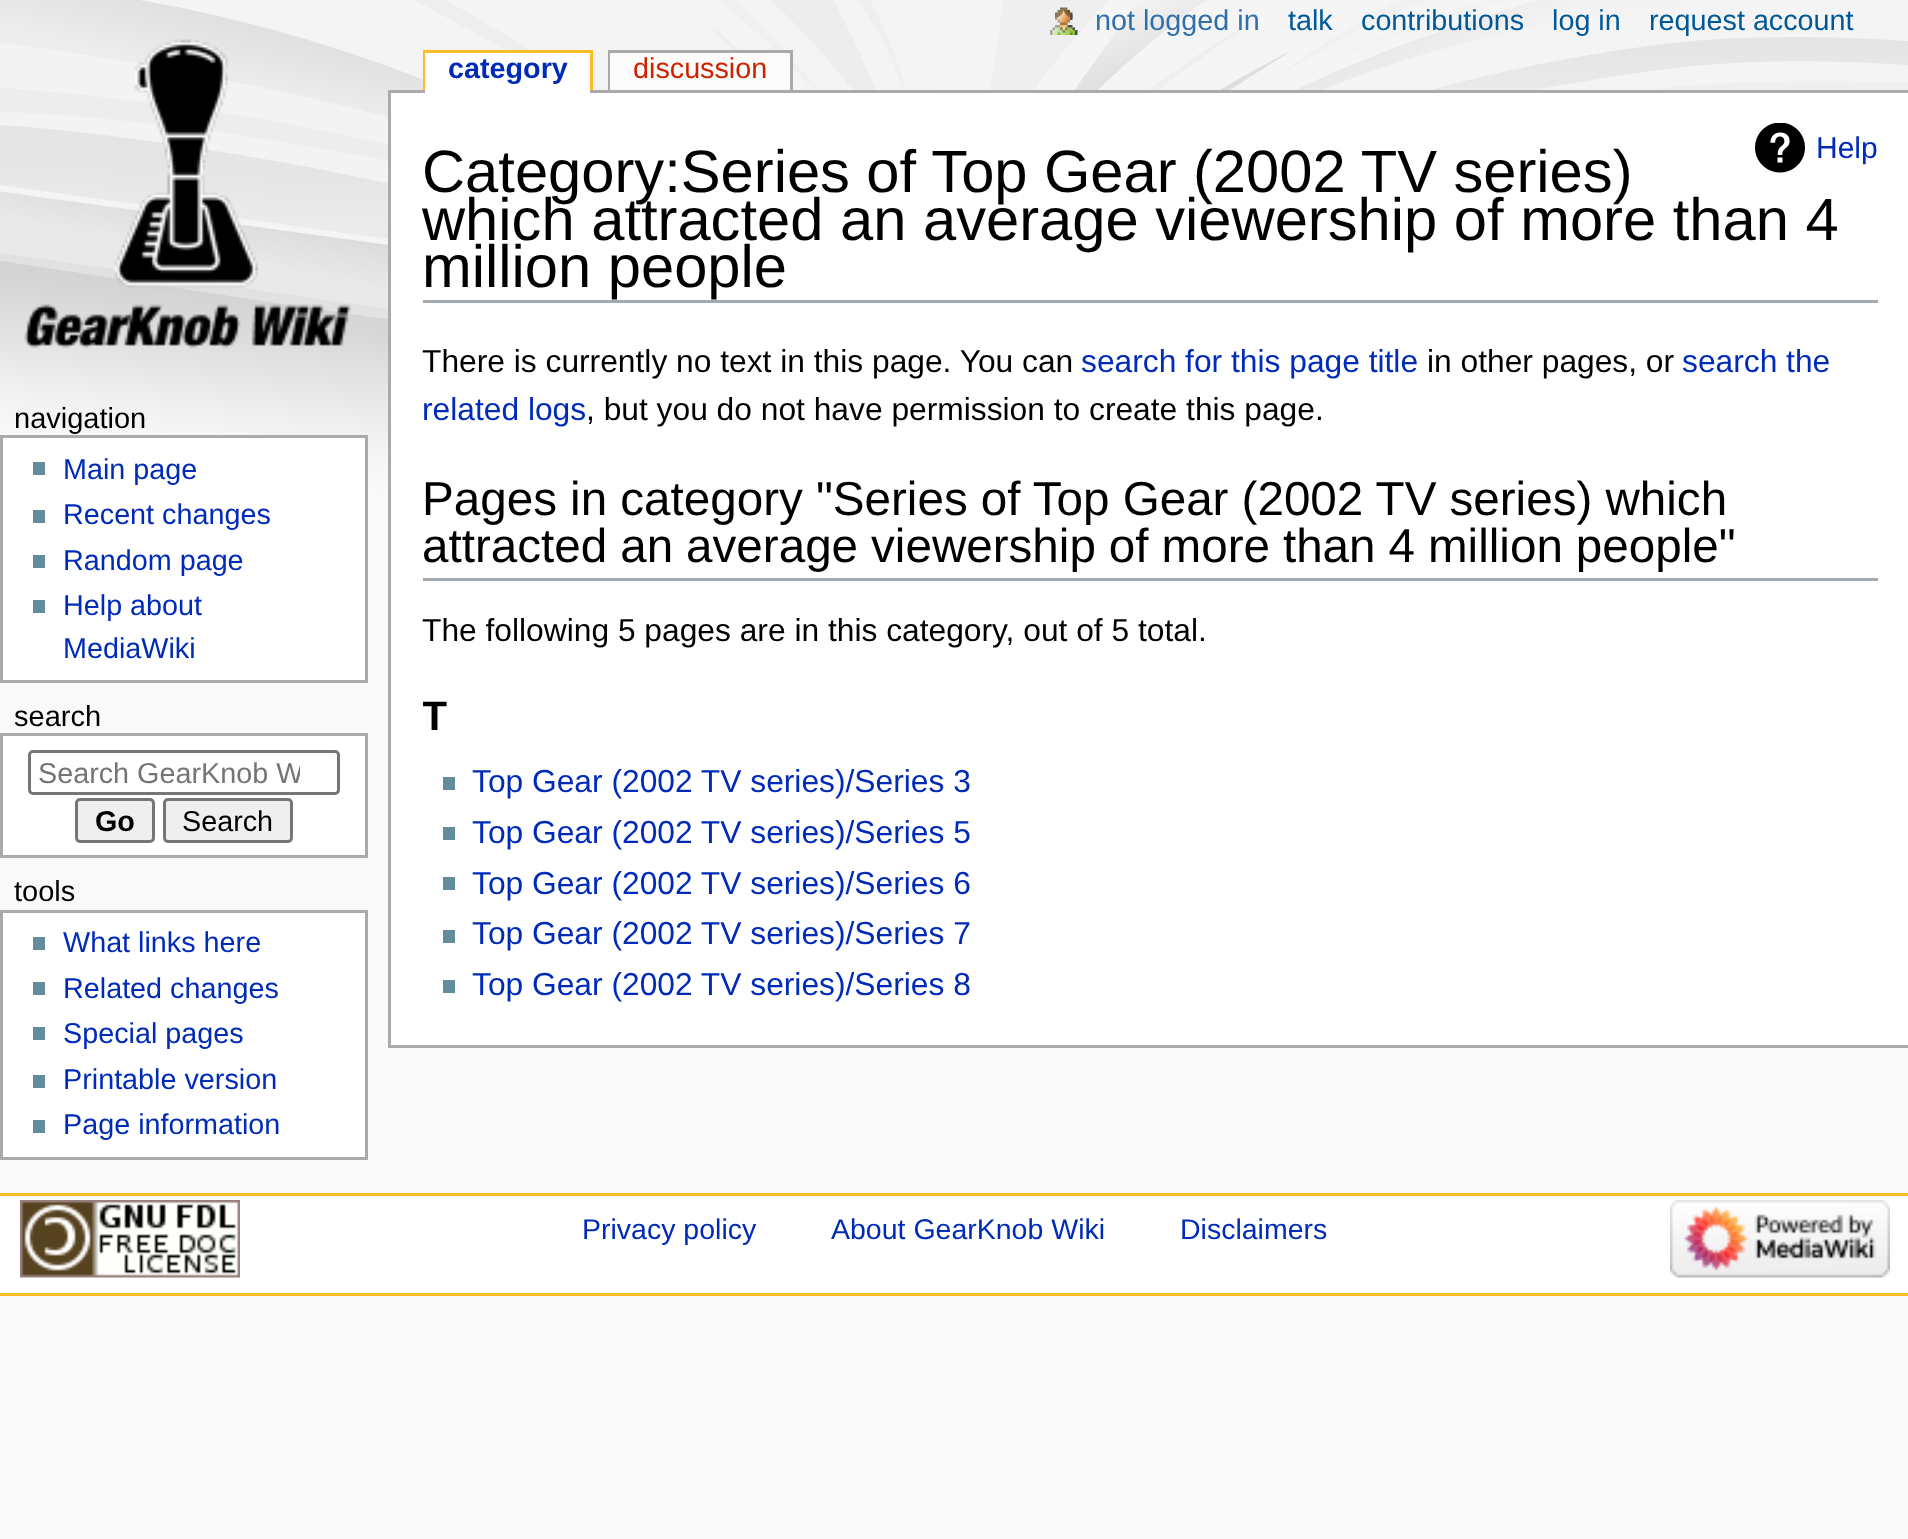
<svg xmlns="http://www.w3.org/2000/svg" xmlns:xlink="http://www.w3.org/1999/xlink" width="1908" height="1539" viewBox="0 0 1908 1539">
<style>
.cls-1{font:28.75px Liberation Sans;fill:#2f6fab}
.cls-2{font:28.75px Liberation Sans;fill:#005896}
.cls-3{font:bold 28.75px Liberation Sans;fill:#002bb8}
.cls-4{font:28.75px Liberation Sans;fill:#cc2200}
.cls-5{font:29px Liberation Sans;fill:#000000}
.cls-6{font:28.75px Liberation Sans;fill:#002bb8}
.cls-7{font:28.75px Liberation Sans;fill:#757575}
.cls-8{font:bold 28.75px Liberation Sans;fill:#000000}
.cls-9{font:28.75px Liberation Sans;fill:#000000}
.cls-10{font:59.7px Liberation Sans;fill:#000000}
.cls-11{font:30px Liberation Sans;fill:#002bb8}
.cls-12{font:31.75px Liberation Sans;fill:#000000}
.cls-13{font:31.75px Liberation Sans;fill:#002bb8}
.cls-14{font:47.6px Liberation Sans;fill:#000000}
.cls-15{font:bold 41px Liberation Sans;fill:#000000}
.cls-16{font:28.5px Liberation Sans;fill:#002bb8}
</style>
<defs>
<clipPath id="clip1"><rect x="38" y="758" width="262" height="30"/></clipPath>
<clipPath id="clip2"><rect x="423" y="673" width="1455" height="75"/></clipPath>
</defs>
<rect width="100%" height="100%" fill="#f9f9f9"/>
<image xlink:href="image0.png" x="0" y="0" width="1908" height="525"/>
<image xlink:href="image1.png" x="1050" y="7" width="28" height="28"/>
<image xlink:href="image2.png" x="24" y="39" width="327" height="310"/>
<rect fill="#fabd23" x="423" y="50" width="170" height="3"/>
<rect fill="#fabd23" x="590" y="50" width="3" height="40"/>
<rect fill="#fabd23" x="423" y="50" width="3" height="40"/>
<rect fill="#aaaaaa" x="388" y="90" width="1520" height="3"/>
<rect fill="#ffffff" x="425" y="53" width="165" height="40"/>
<rect fill="#aaaaaa" x="608" y="50" width="185" height="3"/>
<rect fill="#aaaaaa" x="790" y="50" width="3" height="40"/>
<rect fill="#aaaaaa" x="608" y="50" width="3" height="40"/>
<rect fill="#fbfbfb" x="610" y="53" width="180" height="37"/>
<rect fill="#ffffff" stroke="#aaaaaa" stroke-width="3" x="1.5" y="436.5" width="365" height="245"/>
<rect fill="#638c9c" x="33" y="462" width="12" height="13"/>
<rect fill="#638c9c" x="33" y="510" width="12" height="13"/>
<rect fill="#638c9c" x="33" y="555" width="12" height="13"/>
<rect fill="#638c9c" x="33" y="600" width="12" height="13"/>
<rect fill="#ffffff" stroke="#aaaaaa" stroke-width="3" x="1.5" y="734.5" width="365" height="122"/>
<rect fill="none" stroke="#767676" stroke-width="3" x="29.5" y="751.5" width="309" height="42" rx="3.5"/>
<rect fill="#efefef" stroke="#767676" stroke-width="3" x="76.5" y="799.5" width="77" height="42" rx="3.5"/>
<rect fill="#efefef" stroke="#767676" stroke-width="3" x="164.5" y="799.5" width="127" height="42" rx="3.5"/>
<rect fill="#ffffff" stroke="#aaaaaa" stroke-width="3" x="1.5" y="911.5" width="365" height="247"/>
<rect fill="#638c9c" x="33" y="937" width="12" height="13"/>
<rect fill="#638c9c" x="33" y="982" width="12" height="13"/>
<rect fill="#638c9c" x="33" y="1027" width="12" height="13"/>
<rect fill="#638c9c" x="33" y="1075" width="12" height="13"/>
<rect fill="#638c9c" x="33" y="1120" width="12" height="13"/>
<rect fill="#ffffff" x="391" y="93" width="1517" height="952"/>
<rect fill="#aaaaaa" x="388" y="1045" width="1520" height="3"/>
<rect fill="#aaaaaa" x="388" y="90" width="3" height="958"/>
<rect fill="#a2a9b1" x="423" y="300" width="1455" height="3"/>
<image xlink:href="image3.png" x="1755" y="123" width="50" height="50"/>
<rect fill="#a2a9b1" x="423" y="578" width="1455" height="3"/>
<rect fill="#638c9c" x="443" y="777" width="12" height="13"/>
<rect fill="#638c9c" x="443" y="827" width="12" height="13"/>
<rect fill="#638c9c" x="443" y="877" width="12" height="13"/>
<rect fill="#638c9c" x="443" y="930" width="12" height="13"/>
<rect fill="#638c9c" x="443" y="980" width="12" height="13"/>
<rect fill="#ffffff" x="0" y="1196" width="1908" height="97"/>
<rect fill="#fabd23" x="0" y="1193" width="1908" height="3"/>
<rect fill="#fabd23" x="0" y="1293" width="1908" height="3"/>
<image xlink:href="image4.png" x="20" y="1200" width="220" height="78"/>
<image xlink:href="image5.png" x="1670" y="1200" width="220" height="78"/>
<text class="cls-1" x="1095" y="30">not logged in</text>
<text class="cls-2" x="1288" y="30">talk</text>
<text class="cls-2" x="1361" y="30">contributions</text>
<text class="cls-2" x="1552" y="30">log in</text>
<text class="cls-2" x="1649" y="30">request account</text>
<text class="cls-3" x="448" y="78">category</text>
<text class="cls-4" x="633" y="78">discussion</text>
<text class="cls-5" x="14" y="428">navigation</text>
<text class="cls-6"><tspan x="63" y="479">Main page</tspan><tspan x="63" y="524">Recent changes</tspan><tspan x="63" y="570">Random page</tspan><tspan x="63" y="615">Help about</tspan><tspan x="63" y="658">MediaWiki</tspan></text>
<text class="cls-5" x="14" y="726">search</text>
<g clip-path="url(#clip1)">
<text class="cls-7" x="38" y="783">Search GearKnob W</text>
</g>
<text class="cls-8" x="95" y="831">Go</text>
<text class="cls-9" x="182" y="831">Search</text>
<text class="cls-5" x="14" y="901">tools</text>
<text class="cls-6"><tspan x="63" y="952">What links here</tspan><tspan x="63" y="998">Related changes</tspan><tspan x="63" y="1043">Special pages</tspan><tspan x="63" y="1089">Printable version</tspan><tspan x="63" y="1134">Page information</tspan></text>
<text class="cls-10"><tspan x="422" y="192" word-spacing="-0.25">Category:Series of Top Gear (2002 TV series)</tspan><tspan x="422" y="240">which attracted an average viewership of more than 4</tspan><tspan x="422" y="287">million people</tspan></text>
<text class="cls-11" x="1816" y="158">Help</text>
<text class="cls-12" x="422" y="372">There is currently no text in this page. You can</text>
<text class="cls-13" x="1081" y="372">search for this page title</text>
<text class="cls-12" x="1427" y="372">in other pages, or</text>
<text class="cls-13" x="1682" y="372">search the</text>
<text class="cls-13" x="422" y="420">related logs</text>
<text class="cls-12" x="586" y="420">, but you do not have permission to create this page.</text>
<text class="cls-14"><tspan x="422" y="515" word-spacing="-0.1">Pages in category "Series of Top Gear (2002 TV series) which</tspan><tspan x="422" y="562" word-spacing="-0.25">attracted an average viewership of more than 4 million people"</tspan></text>
<text class="cls-12" x="422" y="641">The following 5 pages are in this category, out of 5 total.</text>
<g clip-path="url(#clip2)">
<text class="cls-15" x="422" y="730">T</text>
</g>
<text class="cls-13"><tspan x="472" y="792">Top Gear (2002 TV series)/Series 3</tspan><tspan x="472" y="843">Top Gear (2002 TV series)/Series 5</tspan><tspan x="472" y="894">Top Gear (2002 TV series)/Series 6</tspan><tspan x="472" y="944">Top Gear (2002 TV series)/Series 7</tspan><tspan x="472" y="995">Top Gear (2002 TV series)/Series 8</tspan></text>
<text class="cls-16" x="582" y="1239">Privacy policy</text>
<text class="cls-16" x="831" y="1239">About GearKnob Wiki</text>
<text class="cls-16" x="1180" y="1239">Disclaimers</text>
</svg>
